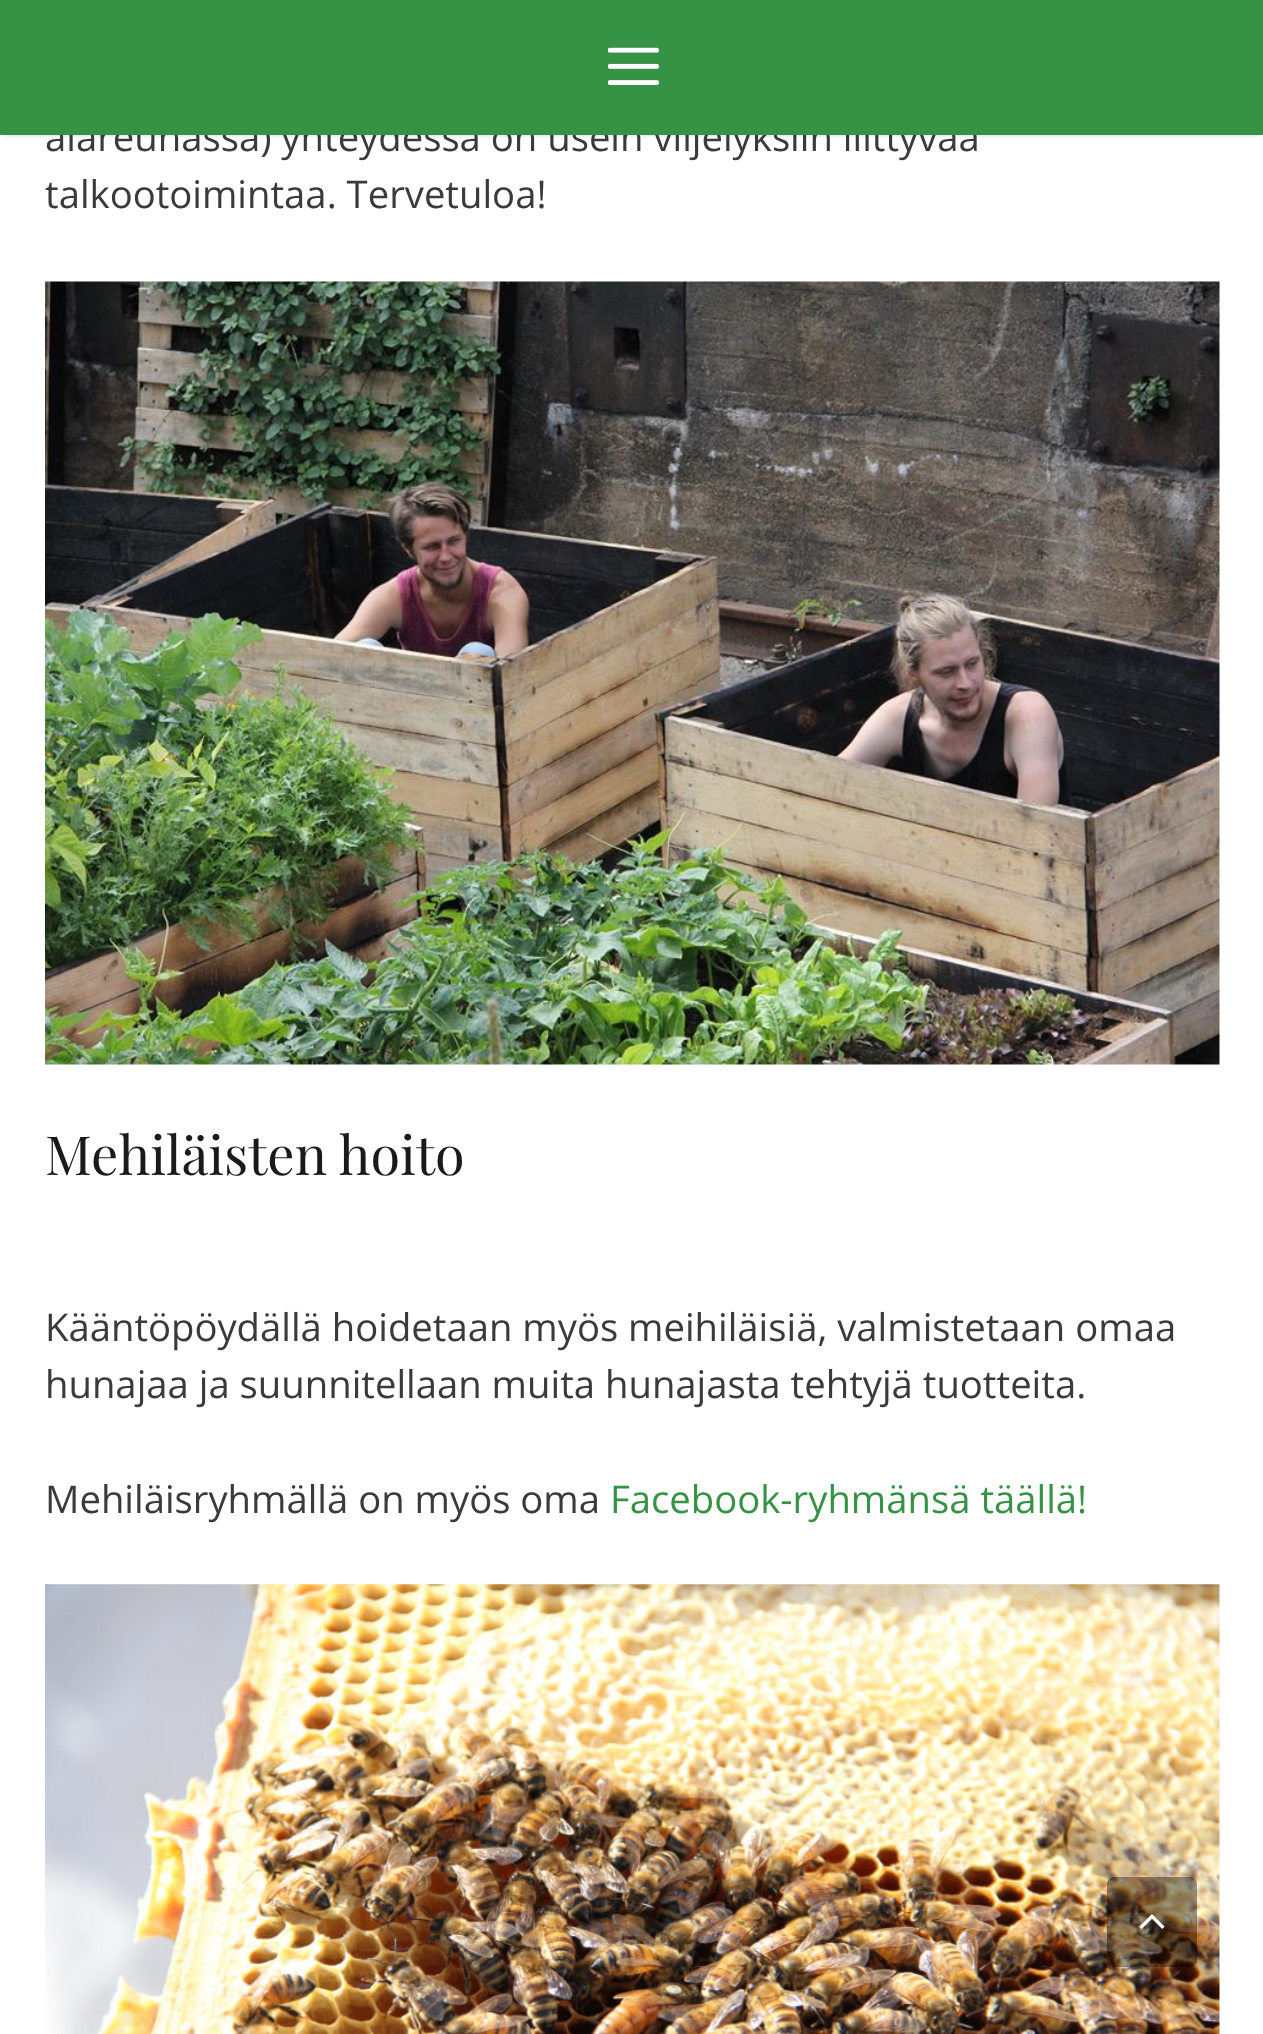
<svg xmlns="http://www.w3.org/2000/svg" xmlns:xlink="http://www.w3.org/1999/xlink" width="1263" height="2034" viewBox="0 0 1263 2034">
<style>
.cls-1{font:38.25px Open Sans;fill:#3a3a3a}
.cls-2{font:54px Playfair Display;fill:#1a1a1a}
.cls-3{font:38.25px Open Sans;fill:#369244}
</style>
<rect width="100%" height="100%" fill="#ffffff"/>
<rect fill="#000000" fill-opacity="0.2" filter="blur(2px)" x="5" y="9" width="1255" height="126"/>
<image xlink:href="image1.png" x="45" y="281" width="1175" height="784"/>
<image xlink:href="image2.png" x="45" y="1584" width="1175" height="450"/>
<rect fill="#000000" fill-opacity="0.4" x="1107" y="1877" width="90" height="90" rx="7"/>
<image xlink:href="image3.png" x="1139" y="1914" width="26" height="15"/>
<text class="cls-1" x="45" y="151">alareunassa) yhteydessä on usein viljelyksiin liittyvää</text>
<rect fill="#369244" x="0" y="0" width="1263" height="135"/>
<image xlink:href="image0.png" x="608" y="47" width="51" height="38"/>
<text class="cls-1" x="45" y="208">talkootoimintaa. Tervetuloa!</text>
<text class="cls-2" x="45" y="1175">Mehiläisten hoito</text>
<text class="cls-1"><tspan x="45" y="1341">Kääntöpöydällä hoidetaan myös meihiläisiä, valmistetaan omaa</tspan><tspan x="45" y="1398">hunajaa ja suunnitellaan muita hunajasta tehtyjä tuotteita.</tspan></text>
<text class="cls-1" x="45" y="1513">Mehiläisryhmällä on myös oma</text>
<text class="cls-3" x="610" y="1513">Facebook-ryhmänsä täällä!</text>
</svg>
